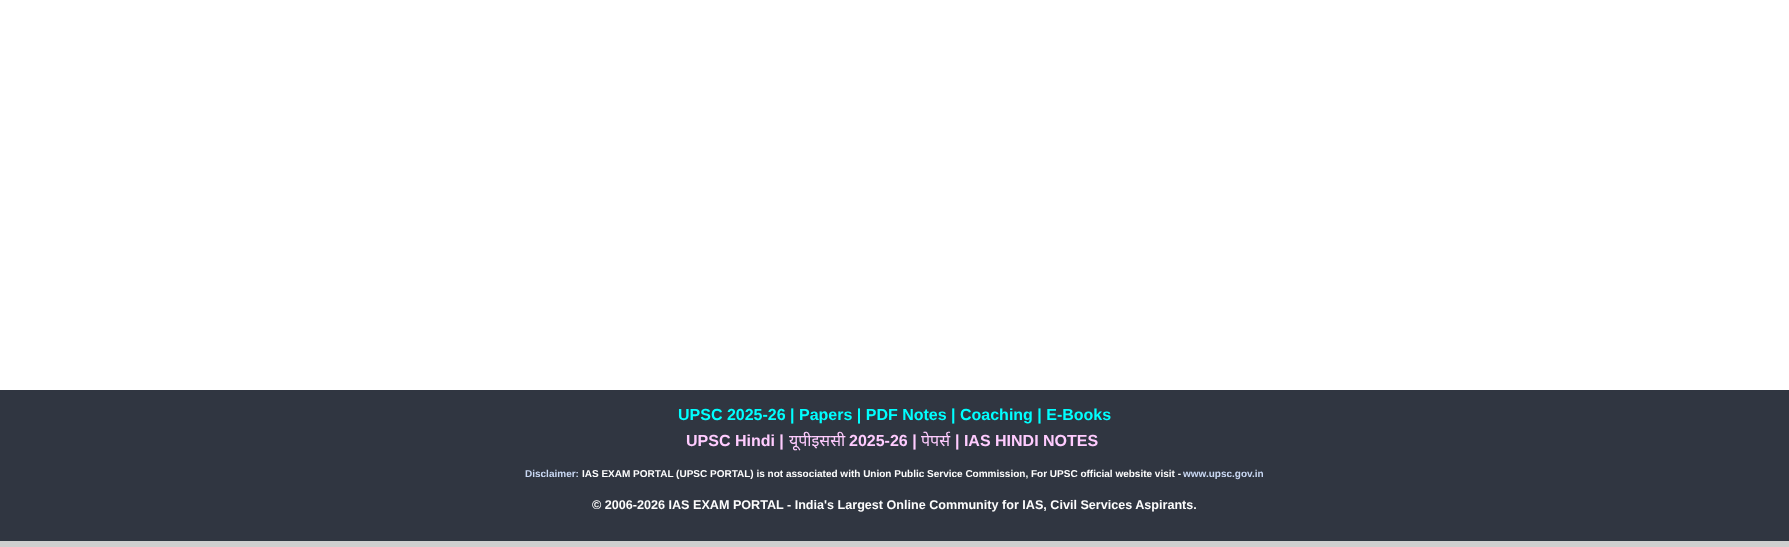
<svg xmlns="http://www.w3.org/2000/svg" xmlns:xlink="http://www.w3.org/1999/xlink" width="1789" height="547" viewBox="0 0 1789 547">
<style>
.cls-1{font:bold 16px Liberation Sans;fill:#00ffff}
.cls-2{font:bold 16px Liberation Sans;fill:#ffccff}
.cls-3{font:16px Noto Sans;fill:#ffccff}
.cls-4{font:bold 10px Liberation Sans;fill:#c9d8f3}
.cls-5{font:bold 10px Liberation Sans;fill:#fdfdfd}
.cls-6{font:bold 12.6px Liberation Sans;fill:#fdfdfd}
</style>
<rect width="100%" height="100%" fill="#cfcfcf"/>
<rect fill="#ffffff" x="0" y="0" width="1789" height="390"/>
<rect fill="#303641" x="0" y="390" width="1789" height="151"/>
<text class="cls-1" x="678" y="420">UPSC 2025-26 | Papers | PDF Notes | Coaching | E-Books</text>
<text class="cls-2" x="686" y="446">UPSC Hindi |</text>
<text class="cls-3" x="789" y="446">यूपीइससी</text>
<text class="cls-2" x="849" y="446">2025-26 |</text>
<text class="cls-3" x="921" y="446">पेपर्स</text>
<text class="cls-2" x="955" y="446">| IAS HINDI NOTES</text>
<text class="cls-4" x="525" y="477">Disclaimer:</text>
<text class="cls-5" x="582" y="477">IAS EXAM PORTAL (UPSC PORTAL) is not associated with Union Public Service Commission, For UPSC official website visit -</text>
<text class="cls-4" x="1183" y="477">www.upsc.gov.in</text>
<text class="cls-6" x="592" y="509">© 2006-2026 IAS EXAM PORTAL - India's Largest Online Community for IAS, Civil Services Aspirants.</text>
</svg>
